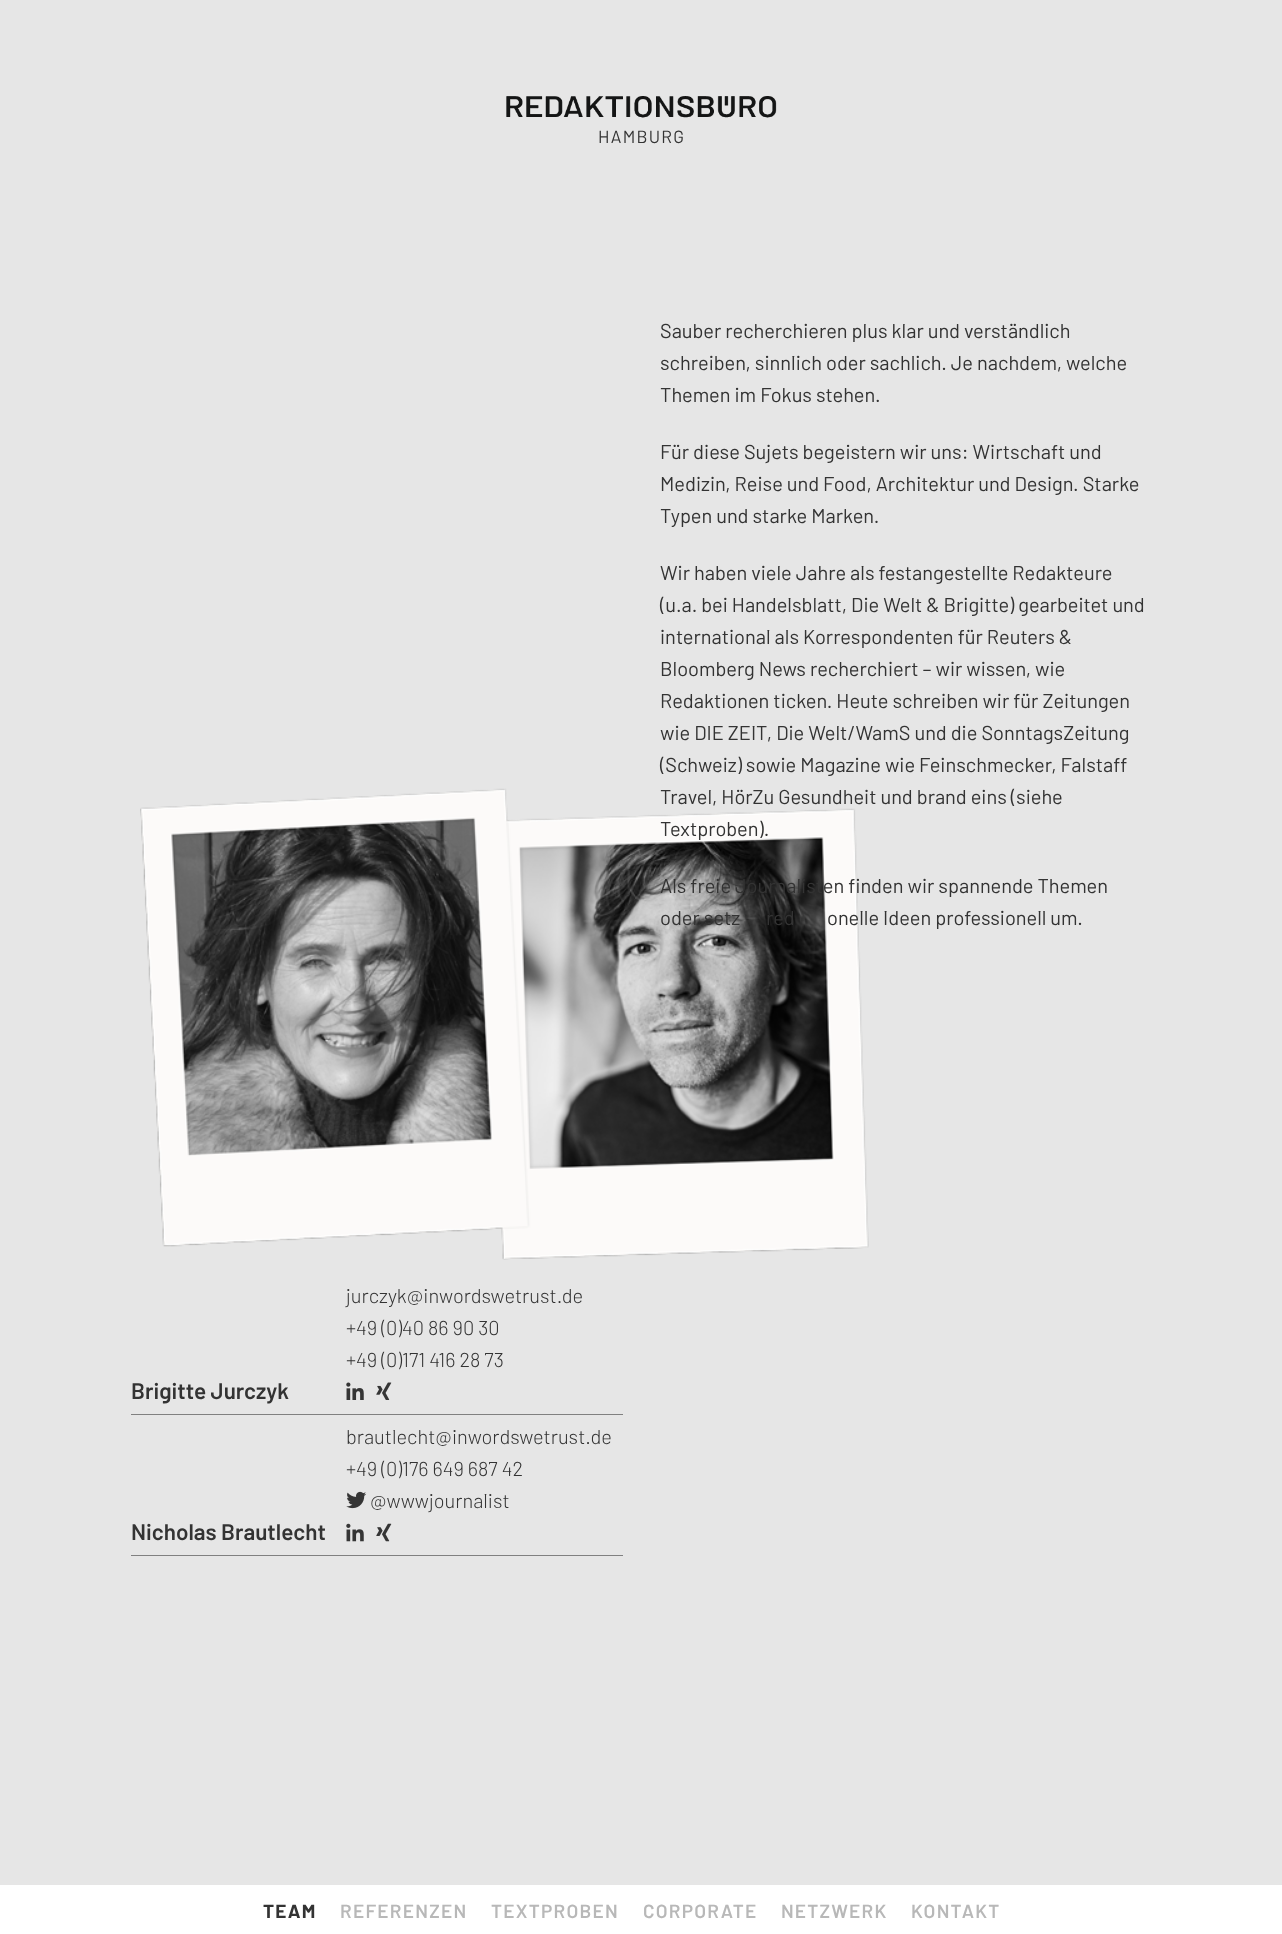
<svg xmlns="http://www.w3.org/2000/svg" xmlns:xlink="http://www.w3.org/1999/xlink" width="1282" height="1934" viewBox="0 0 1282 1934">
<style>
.cls-1{font:17.5px Barlow;letter-spacing:1.25px;fill:#333333}
.cls-2{font:20px Barlow;fill:#333333}
.cls-3{font:300 20px Barlow;fill:#333333}
.cls-4{font:600 22.5px Barlow;fill:#333333}
.cls-5{font:bold 19px Barlow;letter-spacing:1.25px;fill:#333333}
.cls-6{font:600 19px Barlow;letter-spacing:1.25px;fill:#b8b8b8}
</style>
<rect width="100%" height="100%" fill="#e6e6e6"/>
<image xlink:href="image0.png" x="506" y="96" width="271" height="22"/>
<image xlink:href="image1.png" x="140" y="788" width="729" height="472"/>
<rect fill="#808080" x="131" y="1414" width="492" height="1"/>
<image xlink:href="image2.png" x="346" y="1382" width="18" height="18"/>
<image xlink:href="image3.png" x="376" y="1382" width="16" height="18"/>
<rect fill="#808080" x="131" y="1555" width="492" height="1"/>
<image xlink:href="image4.png" x="346" y="1491" width="21" height="18"/>
<image xlink:href="image5.png" x="346" y="1523" width="18" height="19"/>
<image xlink:href="image6.png" x="376" y="1523" width="16" height="19"/>
<rect fill="#ffffff" x="0" y="1885" width="1282" height="49"/>
<text class="cls-1" x="598" y="143">HAMBURG</text>
<text class="cls-2"><tspan x="660" y="338">Sauber recherchieren plus klar und verständlich</tspan><tspan x="660" y="370">schreiben, sinnlich oder sachlich. Je nachdem, welche</tspan><tspan x="660" y="402">Themen im Fokus stehen.</tspan></text>
<text class="cls-2"><tspan x="660" y="459">Für diese Sujets begeistern wir uns: Wirtschaft und</tspan><tspan x="660" y="491">Medizin, Reise und Food, Architektur und Design. Starke</tspan><tspan x="660" y="523">Typen und starke Marken.</tspan></text>
<text class="cls-2"><tspan x="660" y="580">Wir haben viele Jahre als festangestellte Redakteure</tspan><tspan x="660" y="612">(u.a. bei Handelsblatt, Die Welt &amp; Brigitte) gearbeitet und</tspan><tspan x="660" y="644">international als Korrespondenten für Reuters &amp;</tspan><tspan x="660" y="676">Bloomberg News recherchiert – wir wissen, wie</tspan><tspan x="660" y="708">Redaktionen ticken. Heute schreiben wir für Zeitungen</tspan><tspan x="660" y="740">wie DIE ZEIT, Die Welt/WamS und die SonntagsZeitung</tspan><tspan x="660" y="772">(Schweiz) sowie Magazine wie Feinschmecker, Falstaff</tspan><tspan x="660" y="804">Travel, HörZu Gesundheit und brand eins (siehe</tspan><tspan x="660" y="836">Textproben).</tspan></text>
<text class="cls-2"><tspan x="660" y="893">Als freie Journalisten finden wir spannende Themen</tspan><tspan x="660" y="925">oder setz</tspan></text>
<text class="cls-2" x="766" y="925">red</text>
<text class="cls-2" x="827" y="925">onelle Ideen professionell um.</text>
<text class="cls-3"><tspan x="346" y="1303">jurczyk@inwordswetrust.de</tspan><tspan x="346" y="1335">+49 (0)40 86 90 30</tspan><tspan x="346" y="1367">+49 (0)171 416 28 73</tspan></text>
<text class="cls-4" x="131" y="1399">Brigitte Jurczyk</text>
<text class="cls-3"><tspan x="346" y="1444">brautlecht@inwordswetrust.de</tspan><tspan x="346" y="1476">+49 (0)176 649 687 42</tspan></text>
<text class="cls-3" x="370" y="1508">@wwwjournalist</text>
<text class="cls-4" x="131" y="1540">Nicholas Brautlecht</text>
<text class="cls-5" x="263" y="1918">TEAM</text>
<text class="cls-6" x="340" y="1918">REFERENZEN</text>
<text class="cls-6" x="491" y="1918">TEXTPROBEN</text>
<text class="cls-6" x="643" y="1918">CORPORATE</text>
<text class="cls-6" x="781" y="1918">NETZWERK</text>
<text class="cls-6" x="911" y="1918">KONTAKT</text>
</svg>
